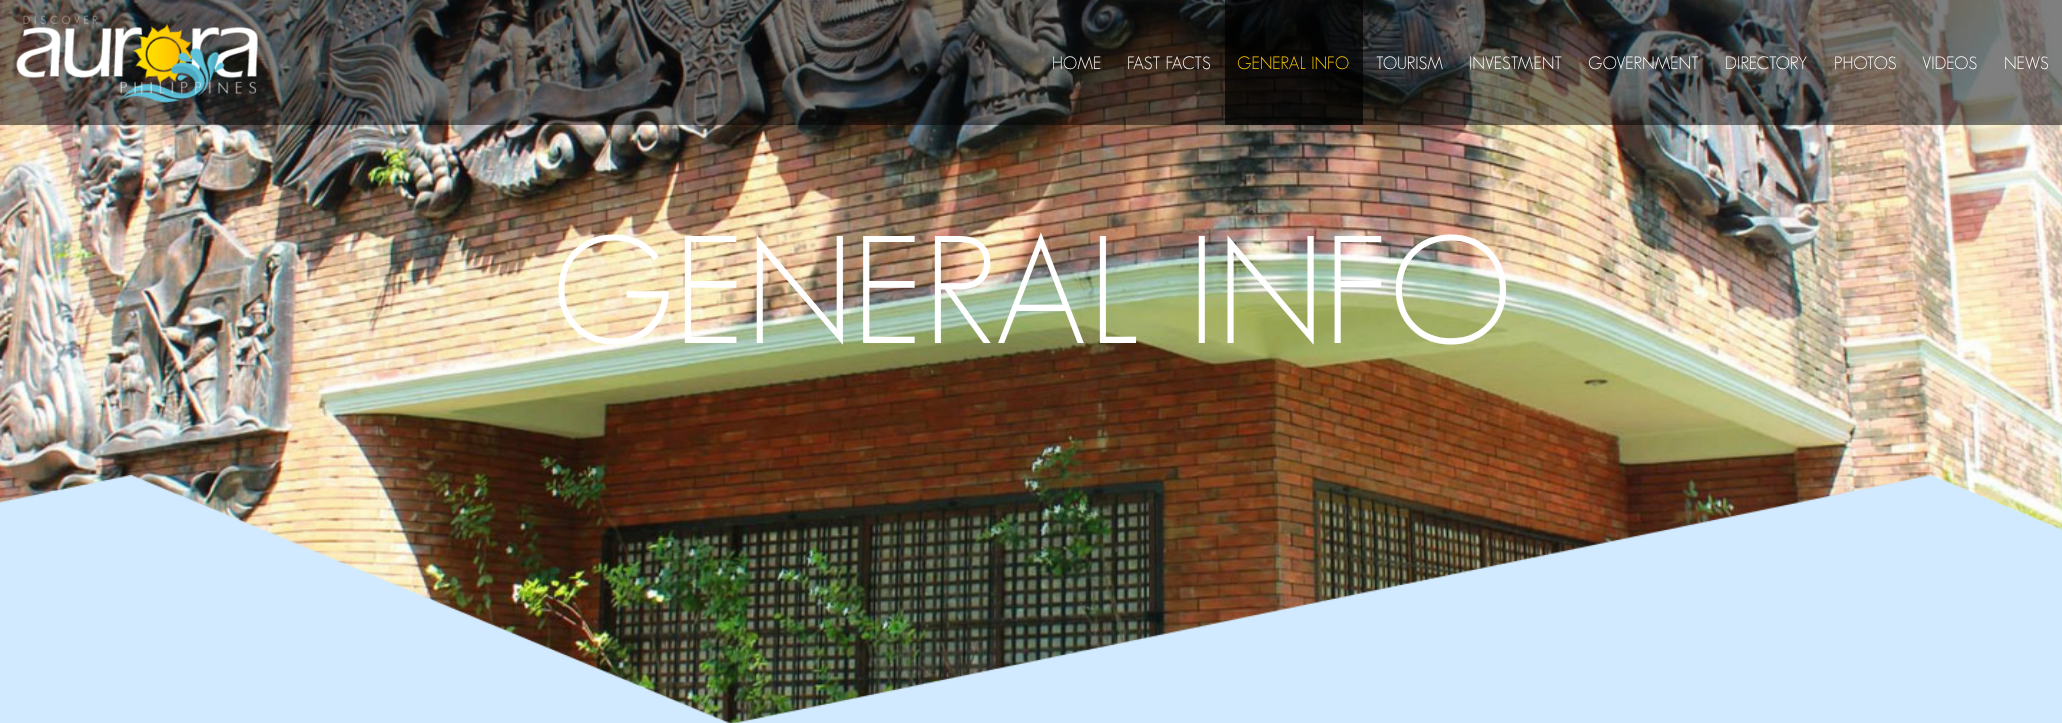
<svg xmlns="http://www.w3.org/2000/svg" xmlns:xlink="http://www.w3.org/1999/xlink" width="2062" height="723" viewBox="0 0 2062 723">
<style>
.cls-1{font:500 17.5px Basic;fill:#ffffff}
.cls-2{font:500 17.5px Basic;fill:#ffcc00}
.cls-3{font:500 150px Basic;fill:#ffffff}
</style>
<rect width="100%" height="100%" fill="#ffffff"/>
<image xlink:href="image0.png" x="0" y="0" width="2062" height="723"/>
<rect fill="#000000" fill-opacity="0.5" x="0" y="0" width="2062" height="125"/>
<image xlink:href="image1.png" x="16" y="15" width="242" height="88"/>
<rect fill="#000000" fill-opacity="0.7" x="1225" y="0" width="138" height="125"/>
<image xlink:href="image2.png" x="0" y="475" width="2062" height="248"/>
<text class="cls-1" x="1052" y="69">HOME</text>
<text class="cls-1" x="1127" y="69">FAST FACTS</text>
<text class="cls-2" x="1237" y="69">GENERAL INFO</text>
<text class="cls-1" x="1376" y="69">TOURISM</text>
<text class="cls-1" x="1469" y="69">INVESTMENT</text>
<text class="cls-1" x="1588" y="69">GOVERNMENT</text>
<text class="cls-1" x="1725" y="69">DIRECTORY</text>
<text class="cls-1" x="1834" y="69">PHOTOS</text>
<text class="cls-1" x="1922" y="69">VIDEOS</text>
<text class="cls-1" x="2004" y="69">NEWS</text>
<text class="cls-3" x="551" y="343">GENERAL INFO</text>
</svg>
